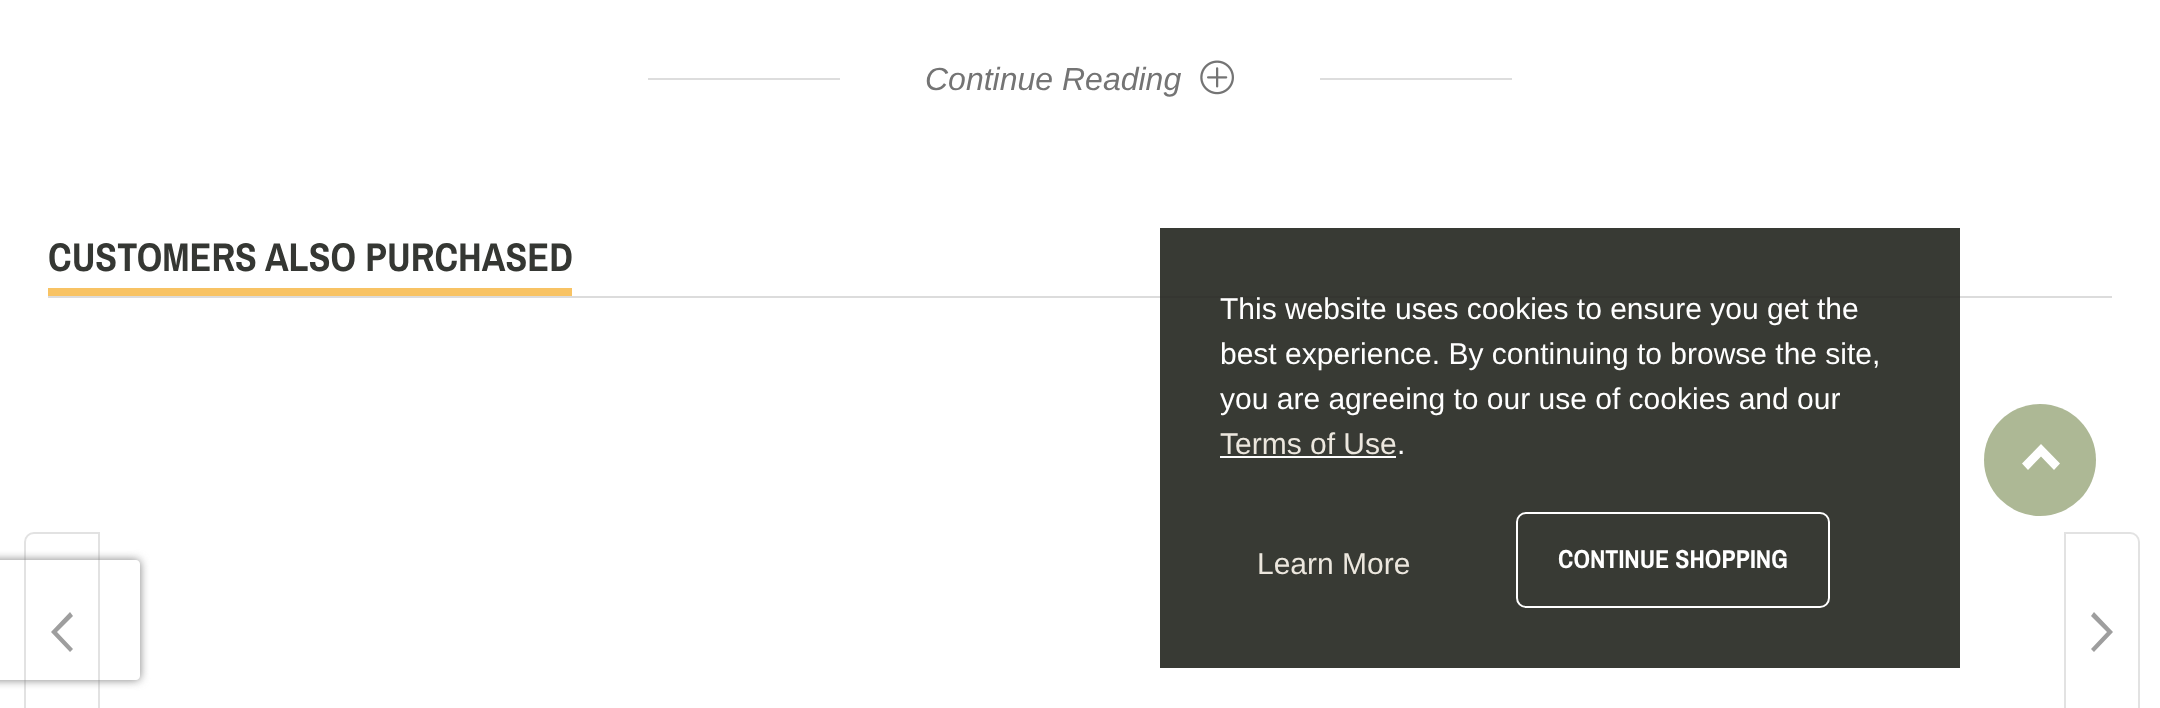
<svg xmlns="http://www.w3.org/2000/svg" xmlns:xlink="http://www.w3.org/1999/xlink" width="2160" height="708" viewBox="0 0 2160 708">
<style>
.cls-1{font:italic 32px Liberation Sans;fill:#747474}
.cls-2{font:bold 40px Archivo Narrow;fill:#353733}
.cls-3{font:30px Arimo;fill:#ffffff}
.cls-4{font:30px Arimo;fill:#ece7de}
.cls-5{font:bold 26px Archivo Narrow;fill:#ffffff}
</style>
<defs>
<clipPath id="clip1"><path d="M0 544H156V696H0ZM-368 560H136C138 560 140 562 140 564V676C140 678 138 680 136 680H-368C-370 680-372 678-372 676V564C-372 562-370 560-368 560Z" clip-rule="evenodd"/></clipPath>
</defs>
<rect width="100%" height="100%" fill="#ffffff"/>
<rect fill="#383a34" x="1160" y="228" width="800" height="440"/>
<rect fill="#dddddd" x="648" y="78" width="192" height="2"/>
<image xlink:href="image0.png" x="1200" y="60" width="34" height="35"/>
<rect fill="#dddddd" x="1320" y="78" width="192" height="2"/>
<rect fill="#dcdcdc" x="48" y="296" width="2064" height="2"/>
<rect fill="#353631" x="1160" y="296" width="800" height="2"/>
<rect fill="#f8c364" x="48" y="288" width="524" height="8"/>
<path fill="none" stroke="#e2e2e2" stroke-width="2" d="M34 533H99V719H34C29 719 25 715 25 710V542C25 537 29 533 34 533Z"/>
<path fill="#9e9e9e" d="M70 612L73 616L57 632L73 649L70 652L51 632Z"/>
<path fill="none" stroke="#e2e2e2" stroke-width="2" d="M2065 533H2130C2135 533 2139 537 2139 542V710C2139 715 2135 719 2130 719H2065Z"/>
<path fill="#9e9e9e" d="M2094 652L2091 649L2107 632L2091 616L2094 612L2113 632Z"/>
<rect fill="#ffffff" x="1220" y="456" width="176" height="2"/>
<rect fill="none" stroke="#ffffff" stroke-width="2" x="1517" y="513" width="312" height="94" rx="9"/>
<circle fill="#adb895" cx="2040" cy="460" r="56"/>
<path fill="#ffffff" fill-rule="evenodd" d="M2022 463.5L2028 470L2041 456.5L2054 470L2060 463.5L2041 444Z"/>
<g clip-path="url(#clip1)">
<rect fill="#808080" filter="blur(5px)" x="-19" y="560" width="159" height="120" rx="4"/>
</g>
<text class="cls-1" x="925" y="90">Continue Reading</text>
<text class="cls-2" x="48" y="271">CUSTOMERS ALSO PURCHASED</text>
<text class="cls-3"><tspan x="1220" y="319">This website uses cookies to ensure you get the</tspan><tspan x="1220" y="364">best experience. By continuing to browse the site,</tspan><tspan x="1220" y="409">you are agreeing to our use of cookies and our</tspan></text>
<text class="cls-4" x="1220" y="454">Terms of Use</text>
<text class="cls-3" x="1397" y="454">.</text>
<text class="cls-4" x="1257" y="574">Learn More</text>
<text class="cls-5" x="1558" y="568">CONTINUE SHOPPING</text>
</svg>
